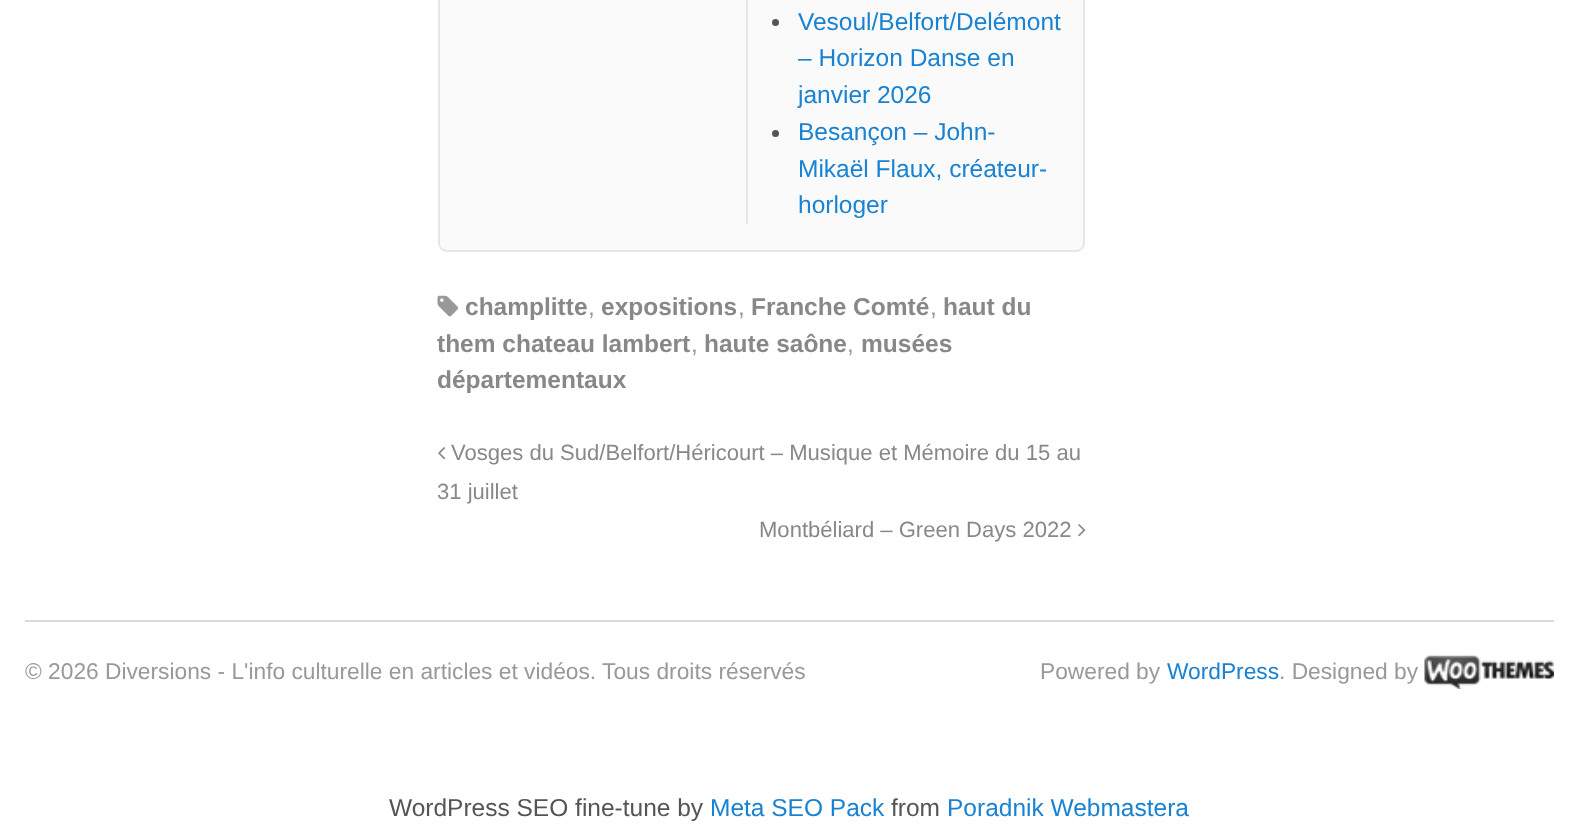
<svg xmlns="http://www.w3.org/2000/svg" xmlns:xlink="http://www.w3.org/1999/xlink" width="1578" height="825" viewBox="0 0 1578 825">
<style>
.cls-1{font:24.5px Liberation Sans;fill:#1982d1}
.cls-2{font:bold 24.5px Liberation Sans;fill:#888888}
.cls-3{font:24.5px Liberation Sans;fill:#999999}
.cls-4{font:22.05px Liberation Sans;fill:#888888}
.cls-5{font:22.75px Liberation Sans;fill:#999999}
.cls-6{font:22.75px Liberation Sans;fill:#1982d1}
.cls-7{font:24.5px Liberation Sans;fill:#555555}
</style>
<rect width="100%" height="100%" fill="#ffffff"/>
<rect fill="#fafafa" stroke="#e6e6e6" stroke-width="2" x="439" y="-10" width="645" height="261" rx="8"/>
<rect fill="#e6e6e6" x="746" y="0" width="2" height="224"/>
<circle fill="#555555" cx="775.5" cy="22.5" r="3.5"/>
<circle fill="#555555" cx="775.5" cy="133.5" r="3.5"/>
<image xlink:href="image0.png" x="437" y="295" width="22" height="22"/>
<image xlink:href="image1.png" x="438" y="447" width="8" height="13"/>
<image xlink:href="image2.png" x="1078" y="524" width="8" height="13"/>
<rect fill="#dbdbdb" x="25" y="620" width="1529" height="2"/>
<image xlink:href="image3.png" x="1424" y="655" width="130" height="34"/>
<text class="cls-1"><tspan x="798" y="30">Vesoul/Belfort/Delémont</tspan><tspan x="798" y="66">– Horizon Danse en</tspan><tspan x="798" y="103">janvier 2026</tspan><tspan x="798" y="140">Besançon – John-</tspan><tspan x="798" y="177">Mikaël Flaux, créateur-</tspan><tspan x="798" y="213">horloger</tspan></text>
<text class="cls-2" x="465" y="315">champlitte</text>
<text class="cls-3" x="588" y="315">,</text>
<text class="cls-2" x="601" y="315">expositions</text>
<text class="cls-3" x="738" y="315">,</text>
<text class="cls-2" x="751" y="315">Franche Comté</text>
<text class="cls-3" x="930" y="315">,</text>
<text class="cls-2" x="943" y="315">haut du</text>
<text class="cls-2" x="437" y="352">them chateau lambert</text>
<text class="cls-3" x="691" y="352">,</text>
<text class="cls-2" x="704" y="352">haute saône</text>
<text class="cls-3" x="847" y="352">,</text>
<text class="cls-2" x="861" y="352">musées</text>
<text class="cls-2" x="437" y="388">départementaux</text>
<text class="cls-4" x="451" y="460">Vosges du Sud/Belfort/Héricourt – Musique et Mémoire du 15 au</text>
<text class="cls-4" x="437" y="499">31 juillet</text>
<text class="cls-4" x="759" y="537">Montbéliard – Green Days 2022</text>
<text class="cls-5" x="25" y="679">© 2026 Diversions - L'info culturelle en articles et vidéos. Tous droits réservés</text>
<text class="cls-5" x="1040" y="679">Powered by</text>
<text class="cls-6" x="1167" y="679">WordPress</text>
<text class="cls-5" x="1279" y="679">. Designed by</text>
<text class="cls-7" x="389" y="816">WordPress SEO fine-tune by</text>
<text class="cls-1" x="710" y="816">Meta SEO Pack</text>
<text class="cls-7" x="891" y="816">from</text>
<text class="cls-1" x="947" y="816">Poradnik Webmastera</text>
</svg>
